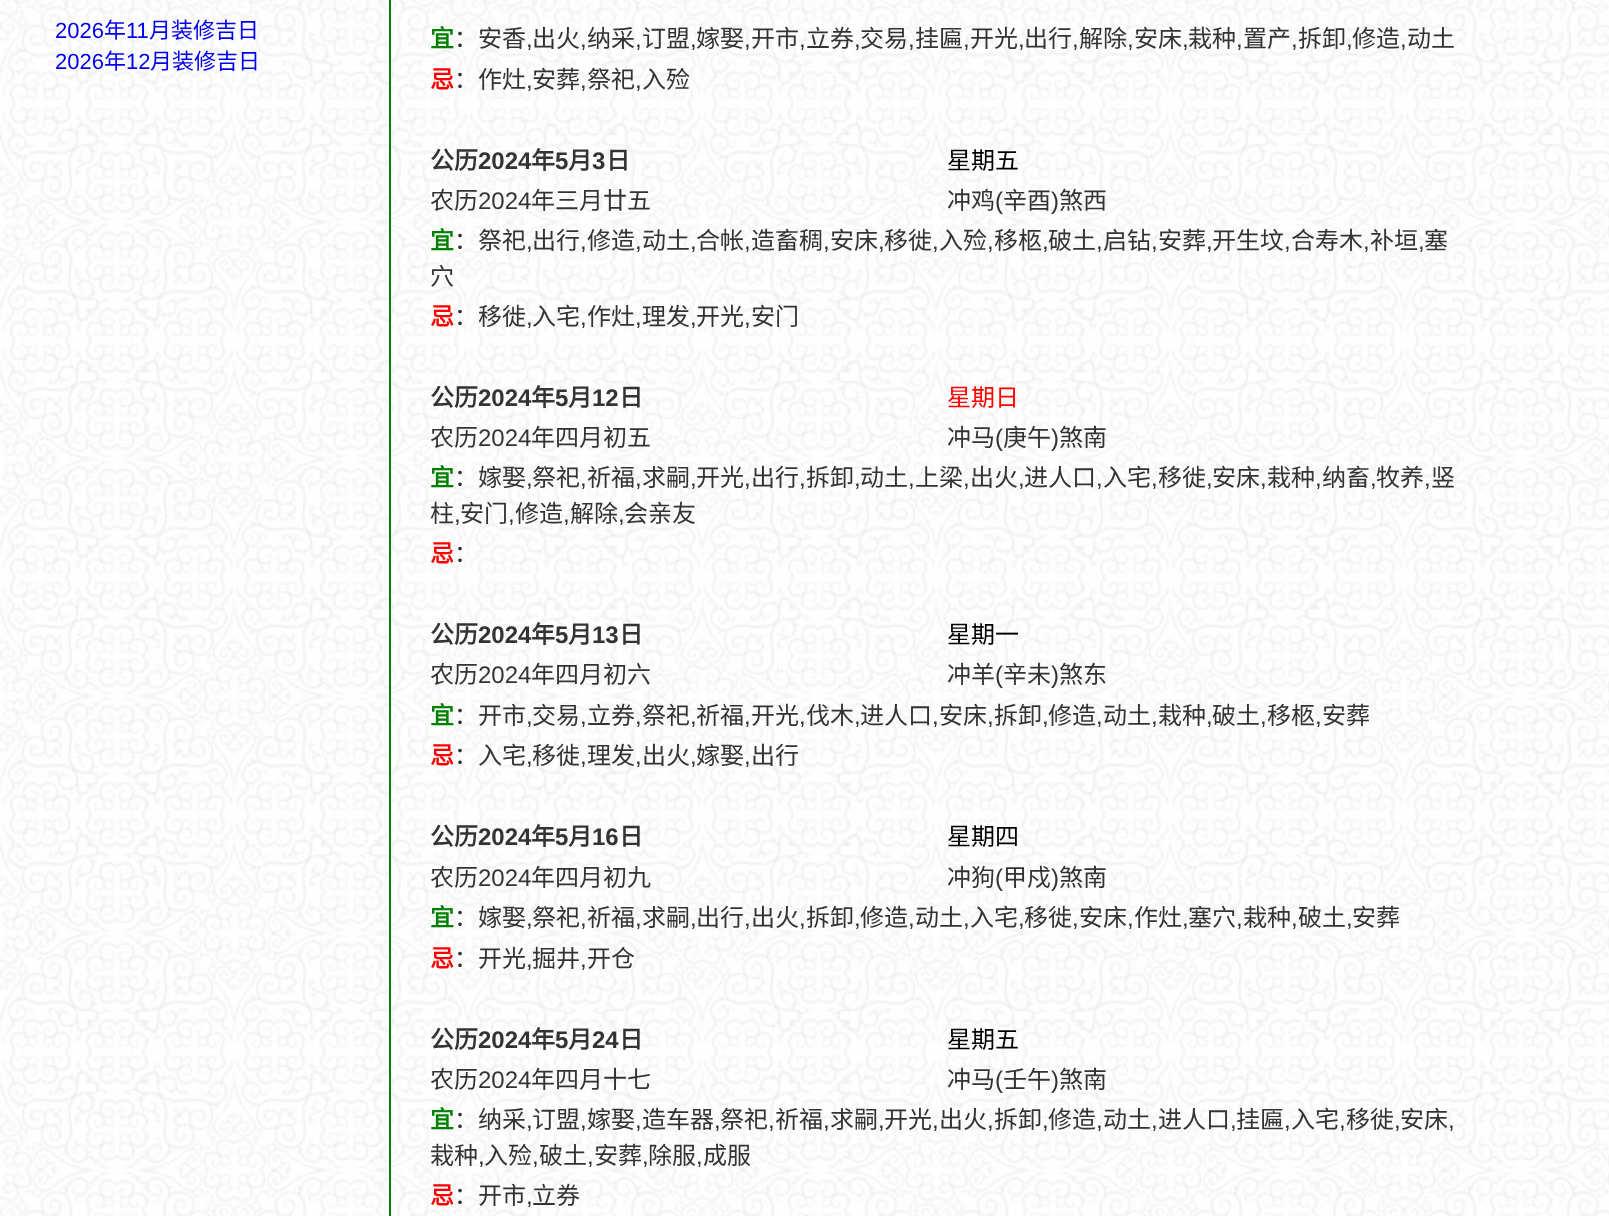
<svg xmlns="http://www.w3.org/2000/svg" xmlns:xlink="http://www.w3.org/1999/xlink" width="1609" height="1216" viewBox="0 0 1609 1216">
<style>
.cls-1{font:22px Liberation Sans;fill:#0000ee}
.cls-2{font:22px Noto Sans CJK SC;fill:#0000ee}
.cls-3{font:bold 24px Noto Sans CJK SC;fill:#008000}
.cls-4{font:24px Noto Sans CJK SC;fill:#333333}
.cls-5{font:24px Liberation Sans;fill:#333333}
.cls-6{font:bold 24px Noto Sans CJK SC;fill:#ff0000}
.cls-7{font:bold 24px Noto Sans CJK SC;fill:#333333}
.cls-8{font:bold 24px Liberation Sans;fill:#333333}
.cls-9{font:24px Noto Sans CJK SC;fill:#000000}
.cls-10{font:24px Noto Sans CJK SC;fill:#ff0000}
</style>
<rect width="100%" height="100%" fill="#ffffff"/>
<image xlink:href="image0.png" x="0" y="0" width="1609" height="1216"/>
<rect fill="#008000" x="389" y="0" width="2" height="1216"/>
<text class="cls-1" x="55" y="38">2026</text>
<text class="cls-2" x="104" y="38">年</text>
<text class="cls-1" x="126" y="38">11</text>
<text class="cls-2" x="149" y="38">月装修吉日</text>
<text class="cls-1" x="55" y="69">2026</text>
<text class="cls-2" x="104" y="69">年</text>
<text class="cls-1" x="126" y="69">12</text>
<text class="cls-2" x="150" y="69">月装修吉日</text>
<text class="cls-3" x="430" y="47">宜</text>
<text class="cls-4" x="454" y="47">：安香</text>
<text class="cls-5" x="526" y="47">,</text>
<text class="cls-4" x="532" y="47">出火</text>
<text class="cls-5" x="580" y="47">,</text>
<text class="cls-4" x="587" y="47">纳采</text>
<text class="cls-5" x="635" y="47">,</text>
<text class="cls-4" x="642" y="47">订盟</text>
<text class="cls-5" x="690" y="47">,</text>
<text class="cls-4" x="696" y="47">嫁娶</text>
<text class="cls-5" x="744" y="47">,</text>
<text class="cls-4" x="751" y="47">开市</text>
<text class="cls-5" x="799" y="47">,</text>
<text class="cls-4" x="806" y="47">立券</text>
<text class="cls-5" x="854" y="47">,</text>
<text class="cls-4" x="860" y="47">交易</text>
<text class="cls-5" x="908" y="47">,</text>
<text class="cls-4" x="915" y="47">挂匾</text>
<text class="cls-5" x="963" y="47">,</text>
<text class="cls-4" x="970" y="47">开光</text>
<text class="cls-5" x="1018" y="47">,</text>
<text class="cls-4" x="1024" y="47">出行</text>
<text class="cls-5" x="1072" y="47">,</text>
<text class="cls-4" x="1079" y="47">解除</text>
<text class="cls-5" x="1127" y="47">,</text>
<text class="cls-4" x="1134" y="47">安床</text>
<text class="cls-5" x="1182" y="47">,</text>
<text class="cls-4" x="1188" y="47">栽种</text>
<text class="cls-5" x="1236" y="47">,</text>
<text class="cls-4" x="1243" y="47">置产</text>
<text class="cls-5" x="1291" y="47">,</text>
<text class="cls-4" x="1298" y="47">拆卸</text>
<text class="cls-5" x="1346" y="47">,</text>
<text class="cls-4" x="1352" y="47">修造</text>
<text class="cls-5" x="1400" y="47">,</text>
<text class="cls-4" x="1407" y="47">动土</text>
<text class="cls-6" x="430" y="88">忌</text>
<text class="cls-4" x="454" y="88">：作灶</text>
<text class="cls-5" x="526" y="88">,</text>
<text class="cls-4" x="532" y="88">安葬</text>
<text class="cls-5" x="580" y="88">,</text>
<text class="cls-4" x="587" y="88">祭祀</text>
<text class="cls-5" x="635" y="88">,</text>
<text class="cls-4" x="642" y="88">入殓</text>
<text class="cls-7" x="430" y="169">公历</text>
<text class="cls-8" x="478" y="169">2024</text>
<text class="cls-7" x="531" y="169">年</text>
<text class="cls-8" x="555" y="169">5</text>
<text class="cls-7" x="568" y="169">月</text>
<text class="cls-8" x="592" y="169">3</text>
<text class="cls-7" x="606" y="169">日</text>
<text class="cls-9" x="947" y="169">星期五</text>
<text class="cls-4" x="430" y="209">农历</text>
<text class="cls-5" x="478" y="209">2024</text>
<text class="cls-4" x="531" y="209">年三月廿五</text>
<text class="cls-4" x="947" y="209">冲鸡</text>
<text class="cls-5" x="995" y="209">(</text>
<text class="cls-4" x="1003" y="209">辛酉</text>
<text class="cls-5" x="1051" y="209">)</text>
<text class="cls-4" x="1059" y="209">煞西</text>
<text class="cls-3" x="430" y="249">宜</text>
<text class="cls-4" x="454" y="249">：祭祀</text>
<text class="cls-5" x="526" y="249">,</text>
<text class="cls-4" x="532" y="249">出行</text>
<text class="cls-5" x="580" y="249">,</text>
<text class="cls-4" x="587" y="249">修造</text>
<text class="cls-5" x="635" y="249">,</text>
<text class="cls-4" x="642" y="249">动土</text>
<text class="cls-5" x="690" y="249">,</text>
<text class="cls-4" x="696" y="249">合帐</text>
<text class="cls-5" x="744" y="249">,</text>
<text class="cls-4" x="751" y="249">造畜稠</text>
<text class="cls-5" x="823" y="249">,</text>
<text class="cls-4" x="830" y="249">安床</text>
<text class="cls-5" x="878" y="249">,</text>
<text class="cls-4" x="884" y="249">移徙</text>
<text class="cls-5" x="932" y="249">,</text>
<text class="cls-4" x="939" y="249">入殓</text>
<text class="cls-5" x="987" y="249">,</text>
<text class="cls-4" x="994" y="249">移柩</text>
<text class="cls-5" x="1042" y="249">,</text>
<text class="cls-4" x="1048" y="249">破土</text>
<text class="cls-5" x="1096" y="249">,</text>
<text class="cls-4" x="1103" y="249">启钻</text>
<text class="cls-5" x="1151" y="249">,</text>
<text class="cls-4" x="1158" y="249">安葬</text>
<text class="cls-5" x="1206" y="249">,</text>
<text class="cls-4" x="1212" y="249">开生坟</text>
<text class="cls-5" x="1284" y="249">,</text>
<text class="cls-4" x="1291" y="249">合寿木</text>
<text class="cls-5" x="1363" y="249">,</text>
<text class="cls-4" x="1370" y="249">补垣</text>
<text class="cls-5" x="1418" y="249">,</text>
<text class="cls-4" x="1424" y="249">塞</text>
<text class="cls-4" x="430" y="285">穴</text>
<text class="cls-6" x="430" y="325">忌</text>
<text class="cls-4" x="454" y="325">：移徙</text>
<text class="cls-5" x="526" y="325">,</text>
<text class="cls-4" x="532" y="325">入宅</text>
<text class="cls-5" x="580" y="325">,</text>
<text class="cls-4" x="587" y="325">作灶</text>
<text class="cls-5" x="635" y="325">,</text>
<text class="cls-4" x="642" y="325">理发</text>
<text class="cls-5" x="690" y="325">,</text>
<text class="cls-4" x="696" y="325">开光</text>
<text class="cls-5" x="744" y="325">,</text>
<text class="cls-4" x="751" y="325">安门</text>
<text class="cls-7" x="430" y="406">公历</text>
<text class="cls-8" x="478" y="406">2024</text>
<text class="cls-7" x="531" y="406">年</text>
<text class="cls-8" x="555" y="406">5</text>
<text class="cls-7" x="568" y="406">月</text>
<text class="cls-8" x="592" y="406">12</text>
<text class="cls-7" x="619" y="406">日</text>
<text class="cls-10" x="947" y="406">星期日</text>
<text class="cls-4" x="430" y="446">农历</text>
<text class="cls-5" x="478" y="446">2024</text>
<text class="cls-4" x="531" y="446">年四月初五</text>
<text class="cls-4" x="947" y="446">冲马</text>
<text class="cls-5" x="995" y="446">(</text>
<text class="cls-4" x="1003" y="446">庚午</text>
<text class="cls-5" x="1051" y="446">)</text>
<text class="cls-4" x="1059" y="446">煞南</text>
<text class="cls-3" x="430" y="486">宜</text>
<text class="cls-4" x="454" y="486">：嫁娶</text>
<text class="cls-5" x="526" y="486">,</text>
<text class="cls-4" x="532" y="486">祭祀</text>
<text class="cls-5" x="580" y="486">,</text>
<text class="cls-4" x="587" y="486">祈福</text>
<text class="cls-5" x="635" y="486">,</text>
<text class="cls-4" x="642" y="486">求嗣</text>
<text class="cls-5" x="690" y="486">,</text>
<text class="cls-4" x="696" y="486">开光</text>
<text class="cls-5" x="744" y="486">,</text>
<text class="cls-4" x="751" y="486">出行</text>
<text class="cls-5" x="799" y="486">,</text>
<text class="cls-4" x="806" y="486">拆卸</text>
<text class="cls-5" x="854" y="486">,</text>
<text class="cls-4" x="860" y="486">动土</text>
<text class="cls-5" x="908" y="486">,</text>
<text class="cls-4" x="915" y="486">上梁</text>
<text class="cls-5" x="963" y="486">,</text>
<text class="cls-4" x="970" y="486">出火</text>
<text class="cls-5" x="1018" y="486">,</text>
<text class="cls-4" x="1024" y="486">进人口</text>
<text class="cls-5" x="1096" y="486">,</text>
<text class="cls-4" x="1103" y="486">入宅</text>
<text class="cls-5" x="1151" y="486">,</text>
<text class="cls-4" x="1158" y="486">移徙</text>
<text class="cls-5" x="1206" y="486">,</text>
<text class="cls-4" x="1212" y="486">安床</text>
<text class="cls-5" x="1260" y="486">,</text>
<text class="cls-4" x="1267" y="486">栽种</text>
<text class="cls-5" x="1315" y="486">,</text>
<text class="cls-4" x="1322" y="486">纳畜</text>
<text class="cls-5" x="1370" y="486">,</text>
<text class="cls-4" x="1376" y="486">牧养</text>
<text class="cls-5" x="1424" y="486">,</text>
<text class="cls-4" x="1431" y="486">竖</text>
<text class="cls-4" x="430" y="522">柱</text>
<text class="cls-5" x="454" y="522">,</text>
<text class="cls-4" x="460" y="522">安门</text>
<text class="cls-5" x="508" y="522">,</text>
<text class="cls-4" x="515" y="522">修造</text>
<text class="cls-5" x="563" y="522">,</text>
<text class="cls-4" x="570" y="522">解除</text>
<text class="cls-5" x="618" y="522">,</text>
<text class="cls-4" x="624" y="522">会亲友</text>
<text class="cls-6" x="430" y="562">忌</text>
<text class="cls-4" x="454" y="562">：</text>
<text class="cls-7" x="430" y="643">公历</text>
<text class="cls-8" x="478" y="643">2024</text>
<text class="cls-7" x="531" y="643">年</text>
<text class="cls-8" x="555" y="643">5</text>
<text class="cls-7" x="568" y="643">月</text>
<text class="cls-8" x="592" y="643">13</text>
<text class="cls-7" x="619" y="643">日</text>
<text class="cls-9" x="947" y="643">星期一</text>
<text class="cls-4" x="430" y="683">农历</text>
<text class="cls-5" x="478" y="683">2024</text>
<text class="cls-4" x="531" y="683">年四月初六</text>
<text class="cls-4" x="947" y="683">冲羊</text>
<text class="cls-5" x="995" y="683">(</text>
<text class="cls-4" x="1003" y="683">辛未</text>
<text class="cls-5" x="1051" y="683">)</text>
<text class="cls-4" x="1059" y="683">煞东</text>
<text class="cls-3" x="430" y="724">宜</text>
<text class="cls-4" x="454" y="724">：开市</text>
<text class="cls-5" x="526" y="724">,</text>
<text class="cls-4" x="532" y="724">交易</text>
<text class="cls-5" x="580" y="724">,</text>
<text class="cls-4" x="587" y="724">立券</text>
<text class="cls-5" x="635" y="724">,</text>
<text class="cls-4" x="642" y="724">祭祀</text>
<text class="cls-5" x="690" y="724">,</text>
<text class="cls-4" x="696" y="724">祈福</text>
<text class="cls-5" x="744" y="724">,</text>
<text class="cls-4" x="751" y="724">开光</text>
<text class="cls-5" x="799" y="724">,</text>
<text class="cls-4" x="806" y="724">伐木</text>
<text class="cls-5" x="854" y="724">,</text>
<text class="cls-4" x="860" y="724">进人口</text>
<text class="cls-5" x="932" y="724">,</text>
<text class="cls-4" x="939" y="724">安床</text>
<text class="cls-5" x="987" y="724">,</text>
<text class="cls-4" x="994" y="724">拆卸</text>
<text class="cls-5" x="1042" y="724">,</text>
<text class="cls-4" x="1048" y="724">修造</text>
<text class="cls-5" x="1096" y="724">,</text>
<text class="cls-4" x="1103" y="724">动土</text>
<text class="cls-5" x="1151" y="724">,</text>
<text class="cls-4" x="1158" y="724">栽种</text>
<text class="cls-5" x="1206" y="724">,</text>
<text class="cls-4" x="1212" y="724">破土</text>
<text class="cls-5" x="1260" y="724">,</text>
<text class="cls-4" x="1267" y="724">移柩</text>
<text class="cls-5" x="1315" y="724">,</text>
<text class="cls-4" x="1322" y="724">安葬</text>
<text class="cls-6" x="430" y="764">忌</text>
<text class="cls-4" x="454" y="764">：入宅</text>
<text class="cls-5" x="526" y="764">,</text>
<text class="cls-4" x="532" y="764">移徙</text>
<text class="cls-5" x="580" y="764">,</text>
<text class="cls-4" x="587" y="764">理发</text>
<text class="cls-5" x="635" y="764">,</text>
<text class="cls-4" x="642" y="764">出火</text>
<text class="cls-5" x="690" y="764">,</text>
<text class="cls-4" x="696" y="764">嫁娶</text>
<text class="cls-5" x="744" y="764">,</text>
<text class="cls-4" x="751" y="764">出行</text>
<text class="cls-7" x="430" y="845">公历</text>
<text class="cls-8" x="478" y="845">2024</text>
<text class="cls-7" x="531" y="845">年</text>
<text class="cls-8" x="555" y="845">5</text>
<text class="cls-7" x="568" y="845">月</text>
<text class="cls-8" x="592" y="845">16</text>
<text class="cls-7" x="619" y="845">日</text>
<text class="cls-9" x="947" y="845">星期四</text>
<text class="cls-4" x="430" y="886">农历</text>
<text class="cls-5" x="478" y="886">2024</text>
<text class="cls-4" x="531" y="886">年四月初九</text>
<text class="cls-4" x="947" y="886">冲狗</text>
<text class="cls-5" x="995" y="886">(</text>
<text class="cls-4" x="1003" y="886">甲戍</text>
<text class="cls-5" x="1051" y="886">)</text>
<text class="cls-4" x="1059" y="886">煞南</text>
<text class="cls-3" x="430" y="926">宜</text>
<text class="cls-4" x="454" y="926">：嫁娶</text>
<text class="cls-5" x="526" y="926">,</text>
<text class="cls-4" x="532" y="926">祭祀</text>
<text class="cls-5" x="580" y="926">,</text>
<text class="cls-4" x="587" y="926">祈福</text>
<text class="cls-5" x="635" y="926">,</text>
<text class="cls-4" x="642" y="926">求嗣</text>
<text class="cls-5" x="690" y="926">,</text>
<text class="cls-4" x="696" y="926">出行</text>
<text class="cls-5" x="744" y="926">,</text>
<text class="cls-4" x="751" y="926">出火</text>
<text class="cls-5" x="799" y="926">,</text>
<text class="cls-4" x="806" y="926">拆卸</text>
<text class="cls-5" x="854" y="926">,</text>
<text class="cls-4" x="860" y="926">修造</text>
<text class="cls-5" x="908" y="926">,</text>
<text class="cls-4" x="915" y="926">动土</text>
<text class="cls-5" x="963" y="926">,</text>
<text class="cls-4" x="970" y="926">入宅</text>
<text class="cls-5" x="1018" y="926">,</text>
<text class="cls-4" x="1024" y="926">移徙</text>
<text class="cls-5" x="1072" y="926">,</text>
<text class="cls-4" x="1079" y="926">安床</text>
<text class="cls-5" x="1127" y="926">,</text>
<text class="cls-4" x="1134" y="926">作灶</text>
<text class="cls-5" x="1182" y="926">,</text>
<text class="cls-4" x="1188" y="926">塞穴</text>
<text class="cls-5" x="1236" y="926">,</text>
<text class="cls-4" x="1243" y="926">栽种</text>
<text class="cls-5" x="1291" y="926">,</text>
<text class="cls-4" x="1298" y="926">破土</text>
<text class="cls-5" x="1346" y="926">,</text>
<text class="cls-4" x="1352" y="926">安葬</text>
<text class="cls-6" x="430" y="967">忌</text>
<text class="cls-4" x="454" y="967">：开光</text>
<text class="cls-5" x="526" y="967">,</text>
<text class="cls-4" x="532" y="967">掘井</text>
<text class="cls-5" x="580" y="967">,</text>
<text class="cls-4" x="587" y="967">开仓</text>
<text class="cls-7" x="430" y="1048">公历</text>
<text class="cls-8" x="478" y="1048">2024</text>
<text class="cls-7" x="531" y="1048">年</text>
<text class="cls-8" x="555" y="1048">5</text>
<text class="cls-7" x="568" y="1048">月</text>
<text class="cls-8" x="592" y="1048">24</text>
<text class="cls-7" x="619" y="1048">日</text>
<text class="cls-9" x="947" y="1048">星期五</text>
<text class="cls-4" x="430" y="1088">农历</text>
<text class="cls-5" x="478" y="1088">2024</text>
<text class="cls-4" x="531" y="1088">年四月十七</text>
<text class="cls-4" x="947" y="1088">冲马</text>
<text class="cls-5" x="995" y="1088">(</text>
<text class="cls-4" x="1003" y="1088">壬午</text>
<text class="cls-5" x="1051" y="1088">)</text>
<text class="cls-4" x="1059" y="1088">煞南</text>
<text class="cls-3" x="430" y="1128">宜</text>
<text class="cls-4" x="454" y="1128">：纳采</text>
<text class="cls-5" x="526" y="1128">,</text>
<text class="cls-4" x="532" y="1128">订盟</text>
<text class="cls-5" x="580" y="1128">,</text>
<text class="cls-4" x="587" y="1128">嫁娶</text>
<text class="cls-5" x="635" y="1128">,</text>
<text class="cls-4" x="642" y="1128">造车器</text>
<text class="cls-5" x="714" y="1128">,</text>
<text class="cls-4" x="720" y="1128">祭祀</text>
<text class="cls-5" x="768" y="1128">,</text>
<text class="cls-4" x="775" y="1128">祈福</text>
<text class="cls-5" x="823" y="1128">,</text>
<text class="cls-4" x="830" y="1128">求嗣</text>
<text class="cls-5" x="878" y="1128">,</text>
<text class="cls-4" x="884" y="1128">开光</text>
<text class="cls-5" x="932" y="1128">,</text>
<text class="cls-4" x="939" y="1128">出火</text>
<text class="cls-5" x="987" y="1128">,</text>
<text class="cls-4" x="994" y="1128">拆卸</text>
<text class="cls-5" x="1042" y="1128">,</text>
<text class="cls-4" x="1048" y="1128">修造</text>
<text class="cls-5" x="1096" y="1128">,</text>
<text class="cls-4" x="1103" y="1128">动土</text>
<text class="cls-5" x="1151" y="1128">,</text>
<text class="cls-4" x="1158" y="1128">进人口</text>
<text class="cls-5" x="1230" y="1128">,</text>
<text class="cls-4" x="1236" y="1128">挂匾</text>
<text class="cls-5" x="1284" y="1128">,</text>
<text class="cls-4" x="1291" y="1128">入宅</text>
<text class="cls-5" x="1339" y="1128">,</text>
<text class="cls-4" x="1346" y="1128">移徙</text>
<text class="cls-5" x="1394" y="1128">,</text>
<text class="cls-4" x="1400" y="1128">安床</text>
<text class="cls-5" x="1448" y="1128">,</text>
<text class="cls-4" x="430" y="1164">栽种</text>
<text class="cls-5" x="478" y="1164">,</text>
<text class="cls-4" x="484" y="1164">入殓</text>
<text class="cls-5" x="532" y="1164">,</text>
<text class="cls-4" x="539" y="1164">破土</text>
<text class="cls-5" x="587" y="1164">,</text>
<text class="cls-4" x="594" y="1164">安葬</text>
<text class="cls-5" x="642" y="1164">,</text>
<text class="cls-4" x="648" y="1164">除服</text>
<text class="cls-5" x="696" y="1164">,</text>
<text class="cls-4" x="703" y="1164">成服</text>
<text class="cls-6" x="430" y="1204">忌</text>
<text class="cls-4" x="454" y="1204">：开市</text>
<text class="cls-5" x="526" y="1204">,</text>
<text class="cls-4" x="532" y="1204">立券</text>
</svg>
